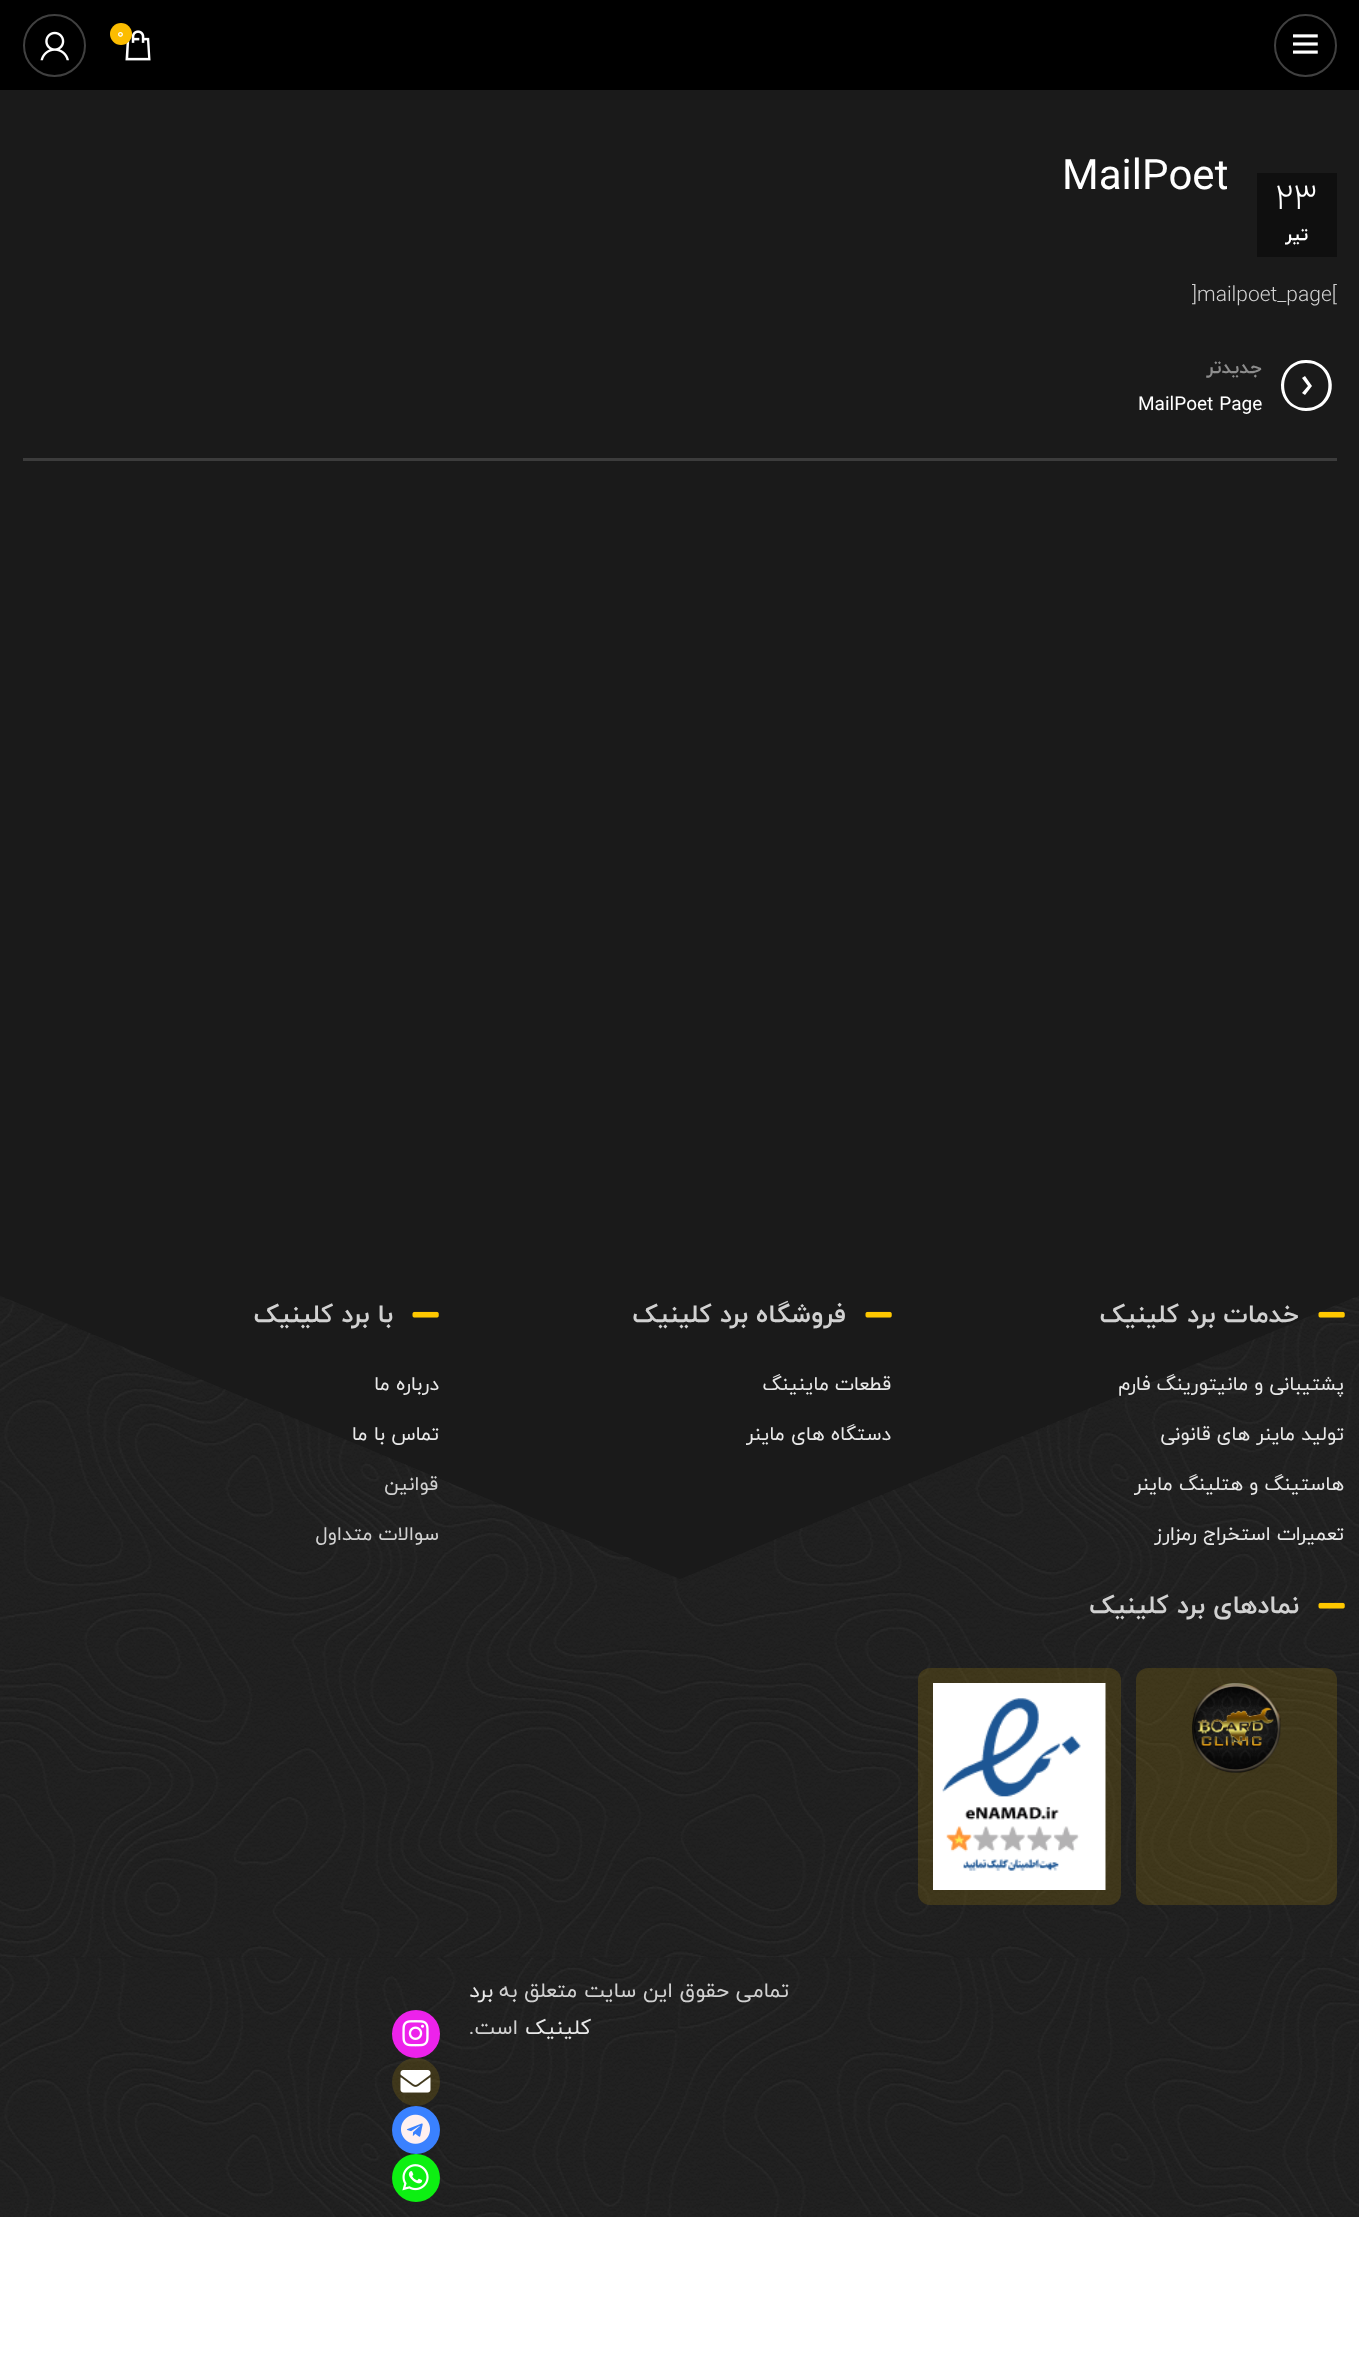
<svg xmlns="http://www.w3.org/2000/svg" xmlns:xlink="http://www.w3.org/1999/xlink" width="1359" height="2376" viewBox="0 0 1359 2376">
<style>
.cls-1{font:14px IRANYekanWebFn;fill:#ffffff}
.cls-2{font:42px IRANYekanWebFn;fill:#ffffff}
.cls-3{font:300 36px IRANYekanWebFn;fill:#ffffff}
.cls-4{font:bold 18px IRANYekanWebFn;direction:rtl;fill:#ffffff}
.cls-5{font:300 21px IRANYekanWebFn;fill:#d1d1d1}
.cls-6{font:bold 19px IRANYekanWebFn;direction:rtl;fill:#8d8d8d}
.cls-7{font:19px IRANYekanWebFn;fill:#ffffff}
.cls-8{font:bold 25.5px IRANYekanWebFn;direction:rtl;fill:#d1d1d1}
.cls-9{font:19.5px IRANYekanWebFn;direction:rtl;fill:#e9e9e9}
.cls-10{font:19.5px IRANYekanWebFn;direction:rtl;fill:#d1d1d1}
.cls-11{font:21px IRANYekanWebFn;direction:rtl;fill:#d1d1d1}
.cls-12{font:21px IRANYekanWebFn;direction:rtl;fill:#e9e9e9}
</style>
<defs>
<clipPath id="clip1"><rect x="0" y="1277" width="1359" height="306"/></clipPath>
</defs>
<rect width="100%" height="100%" fill="#ffffff"/>
<rect fill="#1a1a1a" x="0" y="90" width="1359" height="1187"/>
<rect fill="#000000" x="0" y="0" width="1359" height="90"/>
<circle fill="none" stroke="#404040" stroke-width="2" cx="1305.5" cy="45.5" r="30.5"/>
<image xlink:href="image0.png" x="1293" y="34" width="25" height="20"/>
<image xlink:href="image1.png" x="125" y="30" width="26" height="31"/>
<circle fill="#fcbd00" cx="121" cy="34" r="11"/>
<circle fill="none" stroke="#404040" stroke-width="2" cx="54.5" cy="45.5" r="30.5"/>
<image xlink:href="image2.png" x="40" y="31" width="29" height="30"/>
<rect fill="#0f0f0f" x="1257" y="173" width="80" height="84"/>
<rect fill="#3c3c3c" x="23" y="458" width="1314" height="3"/>
<path fill="#ffffff" d="M1306 411C1301 411 1296 409 1291 406C1272 391 1282 360 1306 360C1331 360 1341 391 1322 406C1317 409 1312 411 1306 411ZM1306 363C1277 363 1277 408 1306 408C1336 408 1336 363 1306 363ZM1305 395L1302 393L1308 386L1302 378L1305 376L1312 386Z"/>
<rect fill="#121212" x="0" y="1295" width="1359" height="922"/>
<image xlink:href="image3.png" x="0" y="1295" width="1359" height="663"/>
<g clip-path="url(#clip1)">
<path fill="#1a1a1a" d="M680 1579L-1 1295V1276H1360V1295Z"/>
</g>
<image xlink:href="image4.png" x="1318" y="1311" width="27" height="7"/>
<image xlink:href="image5.png" x="865" y="1311" width="27" height="7"/>
<image xlink:href="image5.png" x="412" y="1311" width="27" height="7"/>
<image xlink:href="image6.png" x="1318" y="1602" width="27" height="7"/>
<rect fill="#ffc800" fill-opacity="0.14" x="1136" y="1668" width="201" height="237" rx="12"/>
<image xlink:href="image7.png" x="1192" y="1683" width="89" height="90"/>
<rect fill="#ffc800" fill-opacity="0.14" x="918" y="1668" width="203" height="237" rx="12"/>
<image xlink:href="image8.png" x="933" y="1683" width="173" height="207"/>
<image xlink:href="image9.png" x="0" y="1957" width="1359" height="260"/>
<circle fill="#ed22eb" cx="416" cy="2034" r="24"/>
<image xlink:href="image10.png" x="402" y="2020" width="27" height="27"/>
<circle fill="#ffc800" fill-opacity="0.14" cx="416" cy="2082" r="24"/>
<image xlink:href="image11.png" x="400" y="2070" width="31" height="23"/>
<circle fill="#3a81ff" cx="416" cy="2130" r="24"/>
<image xlink:href="image12.png" x="401" y="2114" width="29" height="30"/>
<circle fill="#0df012" cx="416" cy="2178" r="24"/>
<image xlink:href="image13.png" x="402" y="2164" width="27" height="27"/>
<text class="cls-1" x="117" y="38">0</text>
<text class="cls-2" x="1062" y="189">MailPoet</text>
<text class="cls-3" x="1275" y="209">۲۳</text>
<text class="cls-4" x="1308" y="240">تیر</text>
<text class="cls-5" x="1192" y="301">]mailpoet_page[</text>
<text class="cls-6" x="1262" y="373">جدیدتر</text>
<text class="cls-7" x="1138" y="410">MailPoet Page</text>
<text class="cls-8" x="1299" y="1322">خدمات برد کلینیک</text>
<text class="cls-9" x="1344" y="1390">پشتیبانی و مانیتورینگ فارم</text>
<text class="cls-9" x="1344" y="1440">تولید ماینر های قانونی</text>
<text class="cls-9" x="1344" y="1490">هاستینگ و هتلینگ ماینر</text>
<text class="cls-9" x="1344" y="1540">تعمیرات استخراج رمزارز</text>
<text class="cls-8" x="846" y="1322">فروشگاه برد کلینیک</text>
<text class="cls-9" x="891" y="1390">قطعات ماینینگ</text>
<text class="cls-9" x="891" y="1440">دستگاه های ماینر</text>
<text class="cls-8" x="393" y="1322">با برد کلینیک</text>
<text class="cls-9" x="439" y="1390">درباره ما</text>
<text class="cls-9" x="439" y="1440">تماس با ما</text>
<text class="cls-10" x="438" y="1490">قوانین</text>
<text class="cls-10" x="439" y="1540">سوالات متداول</text>
<text class="cls-8" x="1299" y="1613">نمادهای برد کلینیک</text>
<text class="cls-11" x="789" y="1997">تمامی حقوق این سایت متعلق به</text>
<text class="cls-12" x="493" y="1997">برد</text>
<text class="cls-12" x="591" y="2034">کلینیک</text>
<text class="cls-11" x="518" y="2034">است.</text>
</svg>
